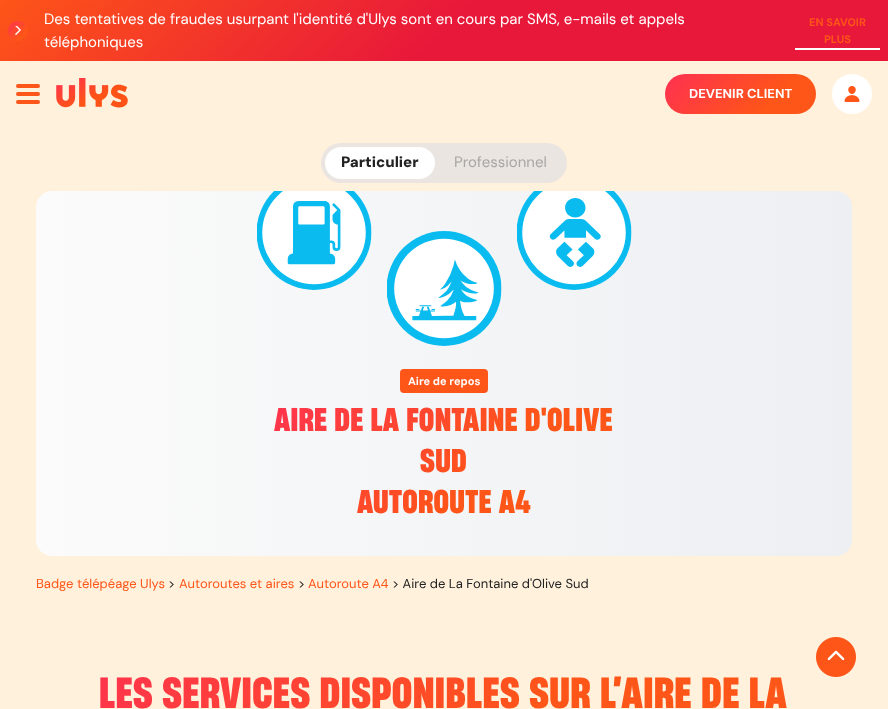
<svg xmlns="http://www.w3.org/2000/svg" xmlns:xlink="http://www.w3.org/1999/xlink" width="888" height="709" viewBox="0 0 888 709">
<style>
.cls-1{font:15px DM Sans;fill:#ffffff}
.cls-2{font:bold 11px DM Sans;fill:#fe5518}
.cls-3{font:bold 13px 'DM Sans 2';fill:#ffffff}
.cls-4{font:900 15px DM Sans;fill:#222222}
.cls-5{font:15px DM Sans;fill:#a9a7a6}
.cls-6{font:bold 11px DM Sans;fill:#ffffff}
.cls-7{font:bold 31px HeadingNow;letter-spacing:0.3px;fill:url(#g1)}
.cls-8{font:13px 'DM Sans 2';fill:#fe5518}
.cls-9{font:13px 'DM Sans 2';fill:#222222}
.cls-10{font:bold 41px HeadingNow;letter-spacing:0.4px;fill:url(#g2)}
</style>
<defs>
<linearGradient id="g1" gradientUnits="userSpaceOnUse" x1="576" y1="590" x2="312" y2="335"><stop offset="0.4" stop-color="#fe5518"/><stop offset="0.99" stop-color="#ff3052"/></linearGradient>
<linearGradient id="g2" gradientUnits="userSpaceOnUse" x1="676" y1="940" x2="212" y2="492"><stop offset="0.4" stop-color="#fe5518"/><stop offset="0.99" stop-color="#ff3052"/></linearGradient>
<linearGradient id="g3" gradientUnits="userSpaceOnUse" x1="681" y1="268" x2="207" y2="-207"><stop offset="0.5" stop-color="#e8183a"/><stop offset="1" stop-color="#fe5518"/></linearGradient>
<linearGradient id="g4" gradientUnits="userSpaceOnUse" x1="8" y1="21" x2="28" y2="41"><stop offset="0" stop-color="#ff3052"/><stop offset="0.7" stop-color="#fe5518"/></linearGradient>
<linearGradient id="g5" gradientUnits="userSpaceOnUse" x1="693" y1="46" x2="788" y2="142"><stop offset="0" stop-color="#ff3052"/><stop offset="0.7" stop-color="#fe5518"/></linearGradient>
<linearGradient id="g6" gradientUnits="userSpaceOnUse" x1="36" y1="374" x2="852" y2="374"><stop offset="0" stop-color="#fbfbfb"/><stop offset="1" stop-color="#edeff2"/></linearGradient>
</defs>
<rect width="100%" height="100%" fill="#fff1dc"/>
<rect fill="url(#g3)" x="0" y="0" width="888" height="61"/>
<circle fill="url(#g4)" cx="18" cy="31" r="10"/>
<image xlink:href="image0.png" x="15" y="26" width="6" height="9"/>
<rect fill="#ffffff" x="795" y="48" width="85" height="2"/>
<rect fill="url(#g5)" x="665" y="74" width="151" height="40" rx="20"/>
<circle fill="#ffffff" cx="852" cy="94" r="20"/>
<image xlink:href="image1.png" x="844" y="86" width="16" height="16"/>
<rect fill="#fe5518" x="16" y="84" width="24" height="4" rx="2"/>
<rect fill="#fe5518" x="16" y="92" width="24" height="4" rx="2"/>
<rect fill="#fe5518" x="16" y="100" width="24" height="4" rx="2"/>
<image xlink:href="image2.png" x="56" y="78" width="72" height="30"/>
<rect fill="#eae5e0" x="321" y="143" width="246" height="40" rx="20"/>
<rect fill="#ffffff" x="325" y="147" width="110" height="32" rx="16"/>
<rect fill="url(#g6)" x="36" y="191" width="816" height="365" rx="16"/>
<image xlink:href="image3.png" x="257" y="191" width="115" height="99"/>
<image xlink:href="image4.png" x="387" y="231" width="115" height="115"/>
<image xlink:href="image5.png" x="517" y="191" width="115" height="99"/>
<rect fill="#fe5518" x="400" y="369" width="88" height="24" rx="4"/>
<image xlink:href="image6.png" x="816" y="637" width="40" height="40"/>
<text class="cls-1"><tspan x="44" y="24">Des tentatives de fraudes usurpant l'identité d'Ulys sont en cours par SMS, e-mails et appels</tspan><tspan x="44" y="47">téléphoniques</tspan></text>
<text class="cls-2" x="809" y="26">EN SAVOIR</text>
<text class="cls-2" x="824" y="43">PLUS</text>
<text class="cls-3" x="689" y="98">DEVENIR CLIENT</text>
<text class="cls-4" x="341" y="167">Particulier</text>
<text class="cls-5" x="454" y="167">Professionnel</text>
<text class="cls-6" x="408" y="385">Aire de repos</text>
<text class="cls-7" x="274" y="431">AIRE DE LA FONTAINE D'OLIVE</text>
<text class="cls-7" x="420" y="472">SUD</text>
<text class="cls-7" x="357" y="513">AUTOROUTE A4</text>
<text class="cls-8" x="36" y="588">Badge télépéage Ulys</text>
<text class="cls-9" x="168" y="588">&gt;</text>
<text class="cls-8" x="179" y="588">Autoroutes et aires</text>
<text class="cls-9" x="298" y="588">&gt;</text>
<text class="cls-8" x="308" y="588">Autoroute A4</text>
<text class="cls-9" x="392" y="588">&gt; Aire de La Fontaine d'Olive Sud</text>
<text class="cls-10" x="99" y="708">LES SERVICES DISPONIBLES SUR L’AIRE DE LA</text>
</svg>
